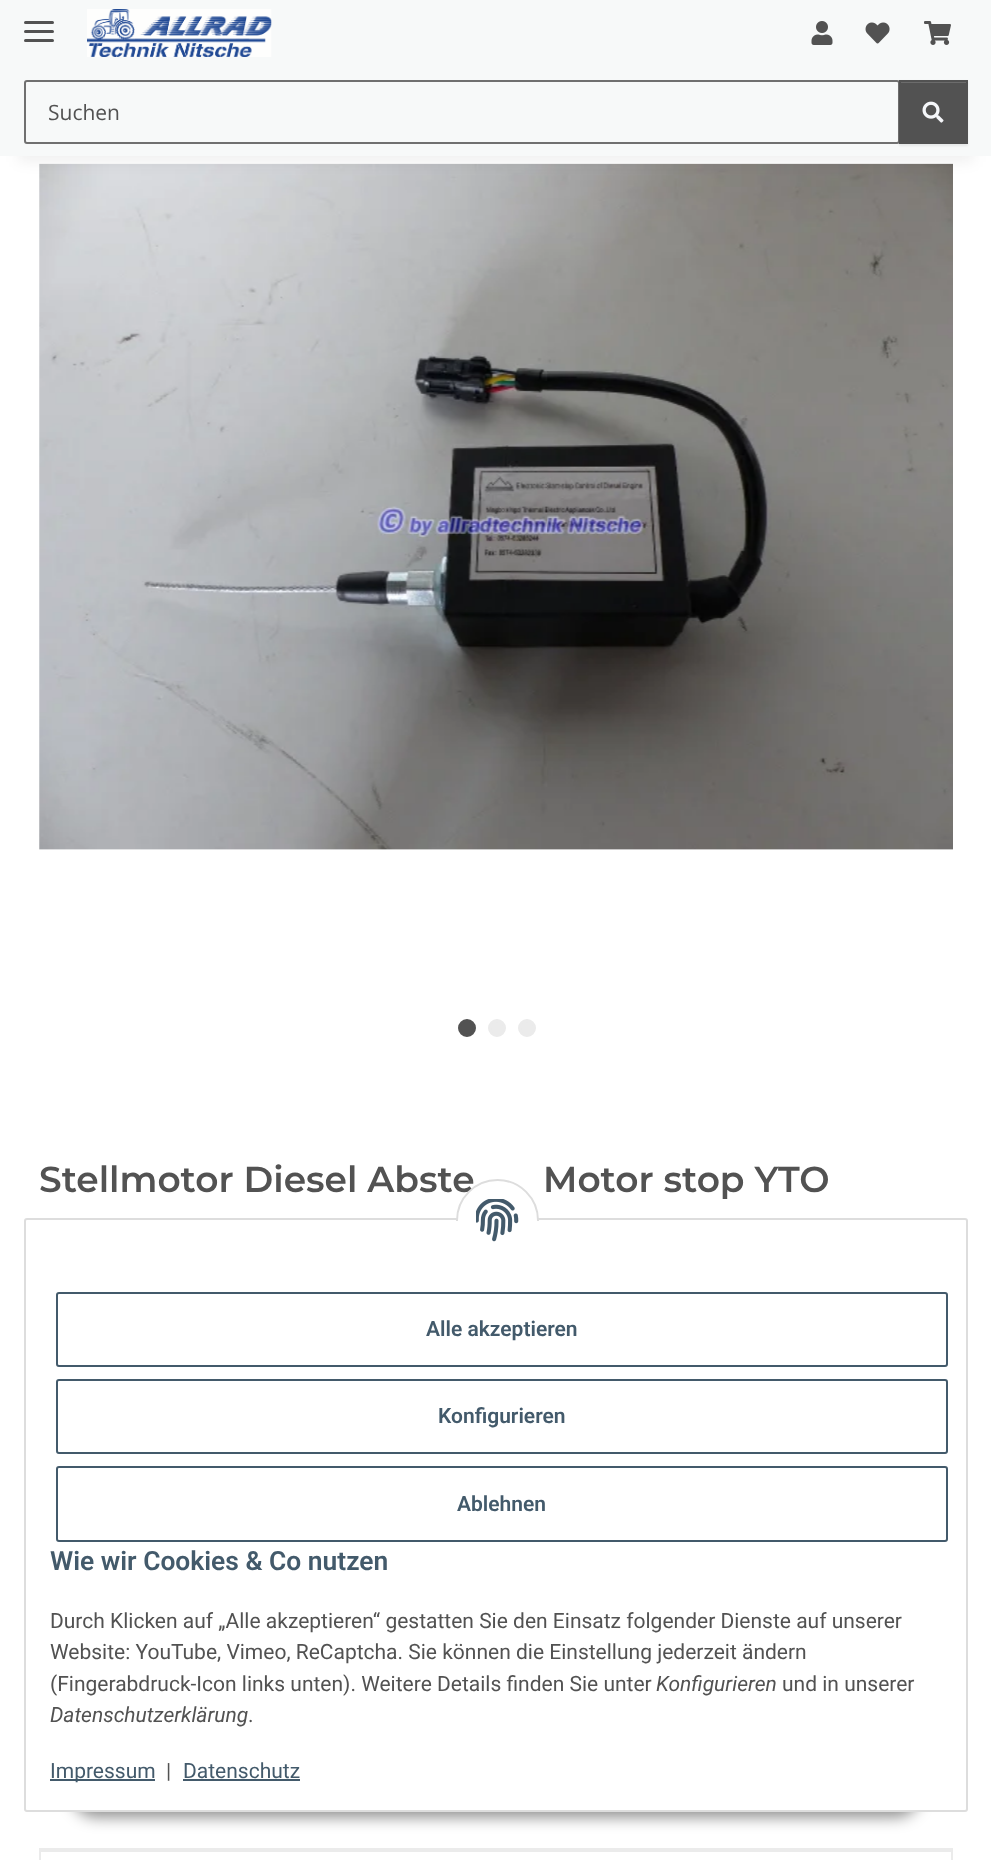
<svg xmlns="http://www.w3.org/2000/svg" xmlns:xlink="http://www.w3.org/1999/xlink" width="991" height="1860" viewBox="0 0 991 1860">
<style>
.cls-1{font:21px Open Sans;fill:#525252}
.cls-2{font:600 36px Montserrat;fill:#525252}
.cls-3{font:600 21px Roboto;fill:#435a6b}
.cls-4{font:600 26.4px Roboto;fill:#435a6b}
.cls-5{font:21px Roboto;fill:#525252}
.cls-6{font:italic 21px Roboto;fill:#525252}
.cls-7{font:21px Roboto;fill:#435a6b}
</style>
<rect width="100%" height="100%" fill="#ffffff"/>
<image xlink:href="image5.png" x="39" y="163" width="914" height="687"/>
<rect fill="#000000" fill-opacity="0.06" filter="blur(7px)" x="18" y="42" width="956" height="120"/>
<rect fill="#f7f9f9" x="0" y="0" width="991" height="156"/>
<rect fill="#525252" x="24" y="30" width="30" height="3" rx="1.5"/>
<rect fill="#525252" x="24" y="21" width="30" height="3" rx="1.5"/>
<rect fill="#525252" x="24" y="39" width="30" height="3" rx="1.5"/>
<image xlink:href="image0.png" x="87" y="9" width="185" height="48"/>
<image xlink:href="image1.png" x="811" y="21" width="22" height="24"/>
<image xlink:href="image2.png" x="865" y="22" width="25" height="22"/>
<image xlink:href="image3.png" x="924" y="21" width="27" height="24"/>
<rect fill="none" stroke="#707070" stroke-width="2" x="25" y="81" width="874" height="62" rx="2"/>
<rect fill="#000000" fill-opacity="0.07" filter="blur(1px)" x="899" y="81" width="69" height="65"/>
<rect fill="#525252" x="901" y="83" width="65" height="59"/>
<rect fill="#6c6c6c" x="900" y="82" width="66" height="1"/>
<rect fill="none" stroke="#525252" stroke-width="2" x="900" y="81" width="67" height="62"/>
<image xlink:href="image4.png" x="922" y="101" width="22" height="22"/>
<circle fill="#525252" stroke="#525252" stroke-width="3" cx="467" cy="1028" r="7.5"/>
<circle fill="#ebebeb" stroke="#ebebeb" stroke-width="3" cx="497" cy="1028" r="7.5"/>
<circle fill="#ebebeb" stroke="#ebebeb" stroke-width="3" cx="527" cy="1028" r="7.5"/>
<rect fill="#ebebeb" x="39" y="1848" width="914" height="4"/>
<rect fill="#ebebeb" x="951" y="1850" width="2" height="10"/>
<rect fill="#ebebeb" x="39" y="1850" width="2" height="10"/>
<rect fill="#000000" fill-opacity="0.45" filter="blur(7.5px)" x="72" y="1769" width="848" height="48" rx="24"/>
<rect fill="#ffffff" stroke="#dddddd" stroke-width="2" x="25" y="1219" width="942" height="592" rx="2"/>
<rect fill="none" stroke="#435a6b" stroke-width="2" x="57" y="1293" width="890" height="73" rx="2"/>
<rect fill="none" stroke="#435a6b" stroke-width="2" x="57" y="1380" width="890" height="73" rx="2"/>
<rect fill="none" stroke="#435a6b" stroke-width="2" x="57" y="1467" width="890" height="74" rx="2"/>
<rect fill="#435a6b" x="50" y="1779" width="105" height="2"/>
<rect fill="#435a6b" x="183" y="1779" width="117" height="2"/>
<text class="cls-1" x="48" y="120">Suchen</text>
<text class="cls-2" x="39" y="1192">Stellmotor Diesel Abste</text>
<text class="cls-2" x="543" y="1192">Motor stop YTO</text>
<circle fill="#ffffff" stroke="#dddddd" stroke-width="2" cx="497.5" cy="1220.5" r="40.5"/>
<rect fill="#ffffff" x="456" y="1221" width="83" height="41"/>
<image xlink:href="image6.png" x="476" y="1199" width="43" height="43"/>
<text class="cls-3" x="426" y="1336">Alle akzeptieren</text>
<text class="cls-3" x="438" y="1423">Konfigurieren</text>
<text class="cls-3" x="457" y="1511">Ablehnen</text>
<text class="cls-4" x="50" y="1570">Wie wir Cookies &amp; Co nutzen</text>
<text class="cls-5"><tspan x="50" y="1628">Durch Klicken auf „Alle akzeptieren“ gestatten Sie den Einsatz folgender Dienste auf unserer</tspan><tspan x="50" y="1659">Website: YouTube, Vimeo, ReCaptcha. Sie können die Einstellung jederzeit ändern</tspan><tspan x="50" y="1691">(Fingerabdruck-Icon links unten). Weitere Details finden Sie unter</tspan></text>
<text class="cls-6" x="656" y="1691">Konfigurieren</text>
<text class="cls-5" x="782" y="1691">und in unserer</text>
<text class="cls-6" x="50" y="1722">Datenschutzerklärung</text>
<text class="cls-5" x="248" y="1722">.</text>
<text class="cls-7" x="50" y="1778">Impressum</text>
<text class="cls-5" x="166" y="1778">|</text>
<text class="cls-7" x="183" y="1778">Datenschutz</text>
</svg>
